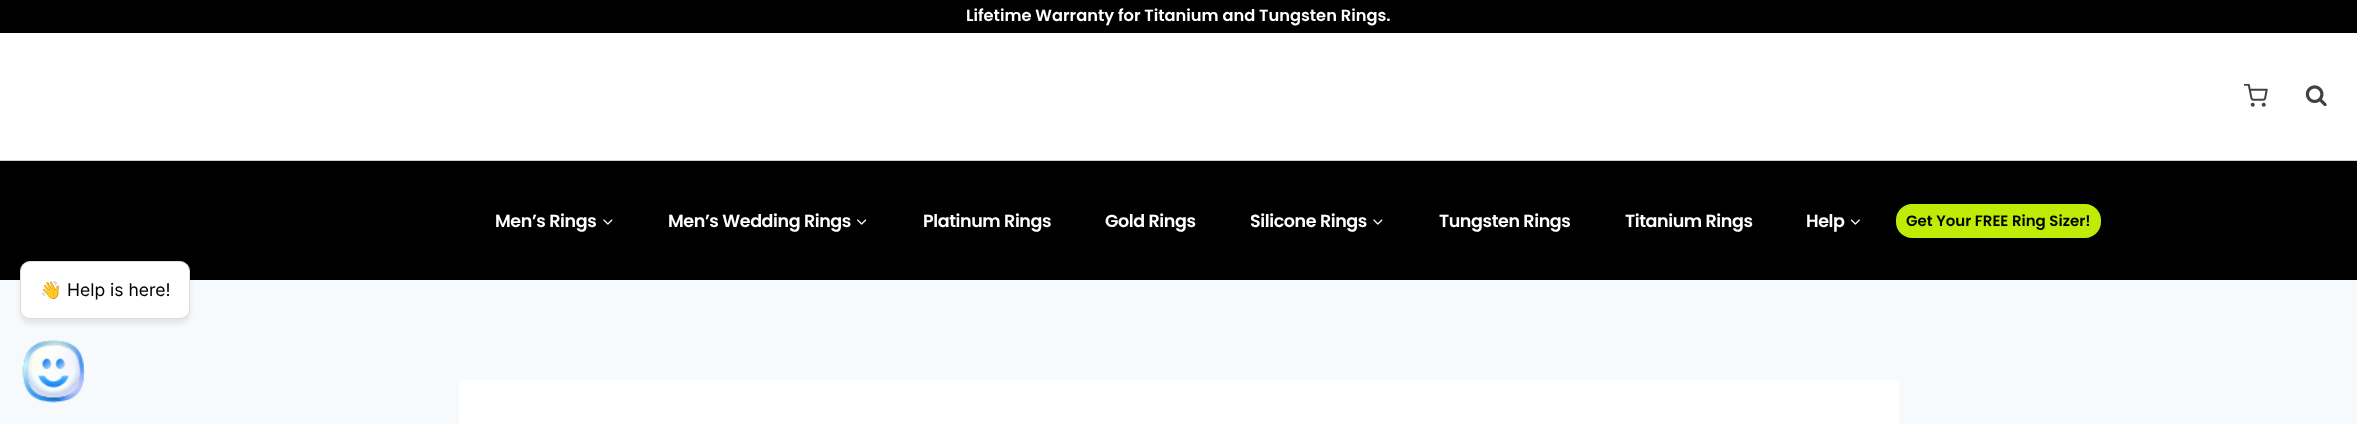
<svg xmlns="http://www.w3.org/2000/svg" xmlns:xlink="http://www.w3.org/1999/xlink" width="2357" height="424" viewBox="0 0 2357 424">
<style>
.cls-1{font:600 16.25px Poppins;fill:#ffffff}
.cls-2{font:600 17.5px Poppins;letter-spacing:-0.4px;fill:#ffffff}
.cls-3{font:600 15px Poppins;fill:#000000}
.cls-4{font:17.5px Noto Color Emoji;fill:#000000}
.cls-5{font:17.5px Inter;fill:#000000}
</style>
<rect width="100%" height="100%" fill="#f7fafc"/>
<rect fill="#ffffff" x="0" y="33" width="2357" height="127"/>
<rect fill="#000000" x="0" y="0" width="2357" height="33"/>
<rect fill="#cbcfd3" x="0" y="160" width="2357" height="1"/>
<image xlink:href="image0.png" x="2244" y="84" width="24" height="23"/>
<image xlink:href="image1.png" x="2305" y="85" width="22" height="21"/>
<rect fill="#000000" x="0" y="161" width="2357" height="119"/>
<image xlink:href="image2.png" x="603" y="219" width="10" height="6"/>
<image xlink:href="image3.png" x="857" y="219" width="10" height="6"/>
<image xlink:href="image2.png" x="1373" y="219" width="10" height="6"/>
<image xlink:href="image4.png" x="1850" y="219" width="10" height="6"/>
<rect fill="#bfec07" x="1896" y="204" width="205" height="34" rx="16"/>
<rect fill="#ffffff" x="459" y="380" width="1440" height="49" rx="5"/>
<rect fill="#000000" fill-opacity="0.08" filter="blur(2.5px)" x="20" y="266" width="170" height="58" rx="10"/>
<rect fill="#ffffff" stroke="#dddddd" x="20.5" y="261.5" width="169" height="57" rx="9.5"/>
<image xlink:href="image5.png" x="22" y="340" width="63" height="63"/>
<text class="cls-1" x="966" y="21">Lifetime Warranty for Titanium and Tungsten Rings.</text>
<text class="cls-2" x="495" y="227">Men’s Rings</text>
<text class="cls-2" x="668" y="227">Men’s Wedding Rings</text>
<text class="cls-2" x="923" y="227">Platinum Rings</text>
<text class="cls-2" x="1105" y="227">Gold Rings</text>
<text class="cls-2" x="1250" y="227">Silicone Rings</text>
<text class="cls-2" x="1439" y="227">Tungsten Rings</text>
<text class="cls-2" x="1625" y="227">Titanium Rings</text>
<text class="cls-2" x="1806" y="227">Help</text>
<text class="cls-3" x="1906" y="226">Get Your FREE Ring Sizer!</text>
<text class="cls-4" x="40" y="296">👋</text>
<text class="cls-5" x="67" y="296">Help is here!</text>
</svg>
